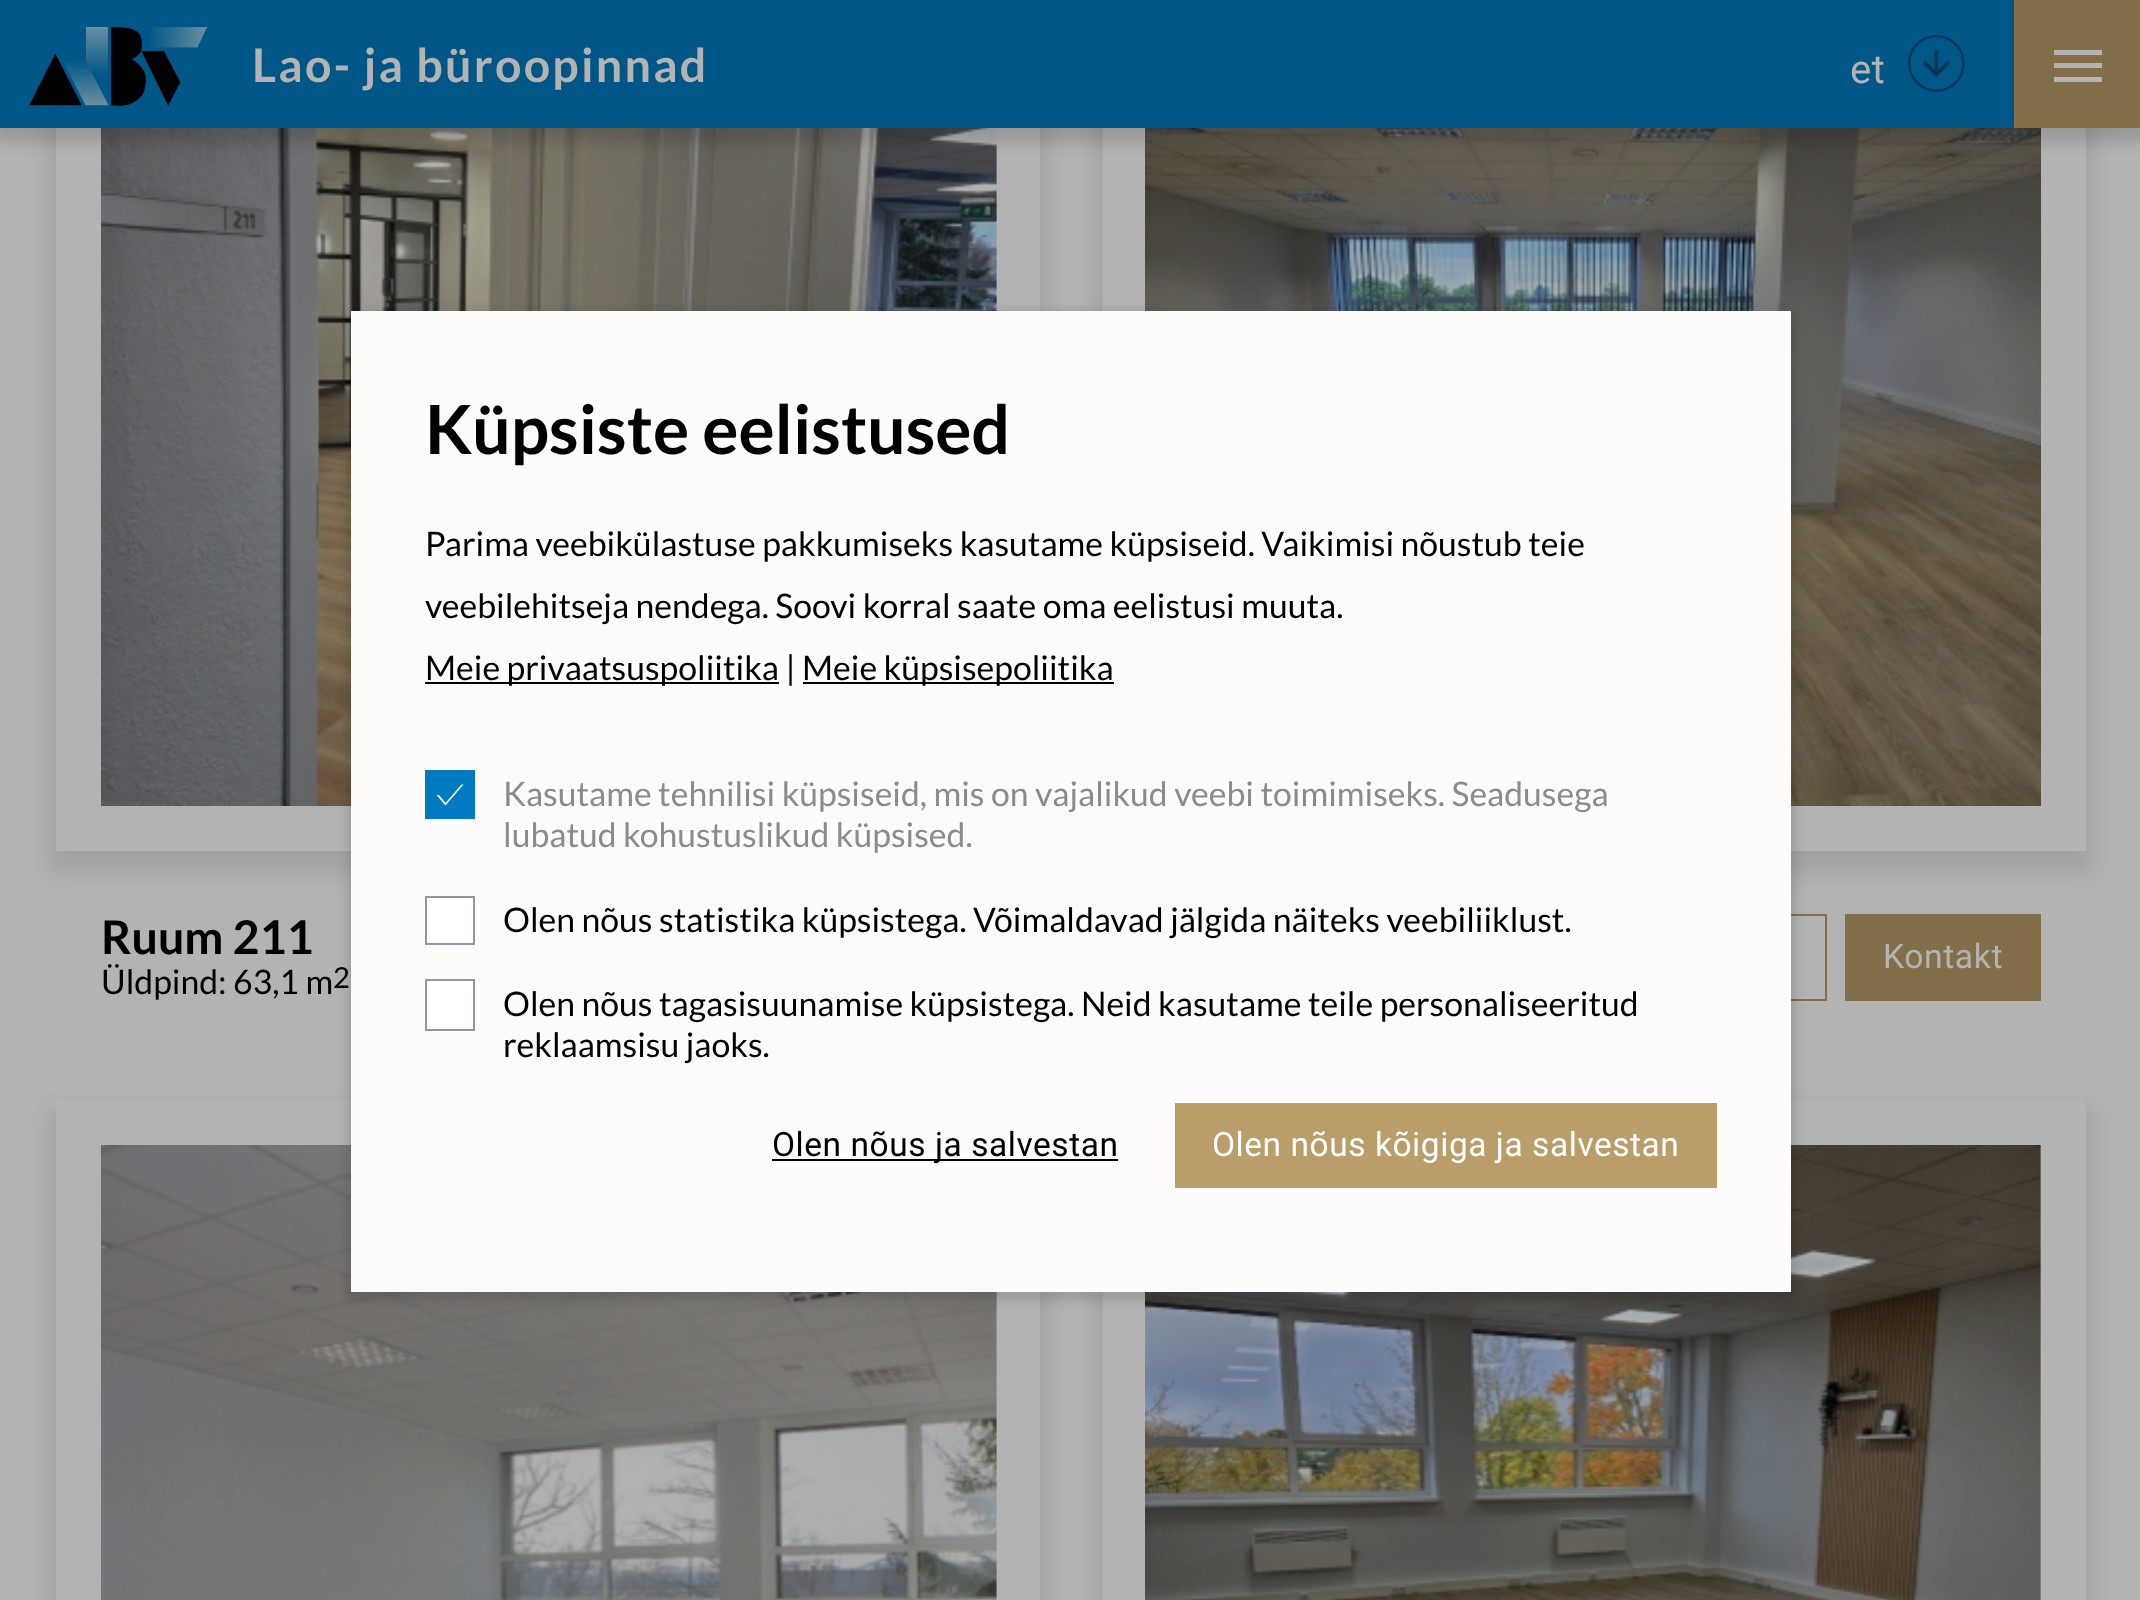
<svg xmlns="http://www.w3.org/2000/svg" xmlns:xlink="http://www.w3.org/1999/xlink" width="2140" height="1600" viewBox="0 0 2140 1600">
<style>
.cls-1{font:bold 46.5px Lato;letter-spacing:2.25px;fill:#b3b3b3}
.cls-2{font:40px Roboto;letter-spacing:0.55px;fill:#b3b3b3}
.cls-3{font:bold 46.5px Lato;fill:#000000}
.cls-4{font:33.75px Lato;fill:#000000}
.cls-5{font:29px Lato;fill:#000000}
.cls-6{font:33.75px Roboto;letter-spacing:0.55px;fill:#b3b3b3}
.cls-7{font:bold 67.75px Lato;fill:#000000}
.cls-8{font:33.75px Lato;fill:#8b8b8b}
.cls-9{font:33.5px Roboto;letter-spacing:0.55px;fill:#000000}
.cls-10{font:33.5px Roboto;letter-spacing:0.55px;fill:#ffffff}
</style>
<rect width="100%" height="100%" fill="#b3b3b3"/>
<rect fill="#000000" fill-opacity="0.09" filter="blur(11px)" x="47" y="-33" width="1002" height="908"/>
<rect fill="#b3b3b3" x="56" y="128" width="984" height="723"/>
<image xlink:href="image2.png" x="101" y="128" width="896" height="678"/>
<rect fill="#000000" fill-opacity="0.09" filter="blur(11px)" x="1094" y="-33" width="1001" height="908"/>
<rect fill="#b3b3b3" x="1103" y="128" width="983" height="723"/>
<image xlink:href="image3.png" x="1145" y="128" width="896" height="678"/>
<rect fill="#000000" fill-opacity="0.15" filter="blur(8px)" x="-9" y="-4" width="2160" height="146"/>
<rect fill="#005687" x="0" y="0" width="2014" height="128"/>
<image xlink:href="image0.png" x="29" y="27" width="178" height="79"/>
<image xlink:href="image1.png" x="1908" y="35" width="57" height="57"/>
<rect fill="#826f4a" x="2014" y="0" width="126" height="128"/>
<rect fill="#b3b3b3" x="2054" y="50" width="48" height="5"/>
<rect fill="#b3b3b3" x="2054" y="63" width="48" height="5"/>
<rect fill="#b3b3b3" x="2054" y="77" width="48" height="5"/>
<rect fill="none" stroke="#826f4a" stroke-width="2" x="1605" y="915" width="221" height="85"/>
<rect fill="#826f4a" x="1845" y="914" width="196" height="87"/>
<rect fill="#000000" fill-opacity="0.09" filter="blur(11px)" x="47" y="1107" width="1002" height="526"/>
<rect fill="#b3b3b3" x="56" y="1100" width="984" height="500"/>
<image xlink:href="image4.png" x="101" y="1145" width="896" height="455"/>
<rect fill="#000000" fill-opacity="0.09" filter="blur(11px)" x="1094" y="1107" width="1001" height="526"/>
<rect fill="#b3b3b3" x="1103" y="1100" width="983" height="500"/>
<image xlink:href="image5.png" x="1145" y="1145" width="896" height="455"/>
<rect fill="#000000" fill-opacity="0.12" filter="blur(5.5px)" x="347" y="311" width="1449" height="990"/>
<rect fill="#fdfcfa" x="351" y="311" width="1440" height="981"/>
<rect fill="#000000" x="425" y="682" width="354" height="2"/>
<rect fill="#000000" x="803" y="682" width="311" height="2"/>
<rect fill="#007bc1" x="425" y="770" width="50" height="49"/>
<path fill="#ffffff" d="M445.5 805.5L436.5 795H439L445.5 803L461.5 784.5H463.5Z"/>
<rect fill="#ffffff" stroke="#969698" stroke-width="2" x="426" y="897" width="48" height="47"/>
<rect fill="#ffffff" stroke="#969698" stroke-width="2" x="426" y="980" width="48" height="50"/>
<rect fill="#000000" x="772" y="1159" width="346" height="2"/>
<rect fill="#b99e69" x="1175" y="1103" width="542" height="85"/>
<text class="cls-1" x="252" y="82">Lao- ja büroopinnad</text>
<text class="cls-2" x="1850" y="83">et</text>
<text class="cls-3" x="101" y="954">Ruum 211</text>
<text class="cls-4" x="101" y="994">Üldpind: 63,1 m</text>
<text class="cls-5" x="333" y="988">2</text>
<text class="cls-6" x="1883" y="968">Kontakt</text>
<text class="cls-7" x="425" y="454">Küpsiste eelistused</text>
<text class="cls-4"><tspan x="425" y="556">Parima veebikülastuse pakkumiseks kasutame küpsiseid. Vaikimisi nõustub teie</tspan><tspan x="425" y="618">veebilehitseja nendega. Soovi korral saate oma eelistusi muuta.</tspan><tspan x="425" y="680">Meie privaatsuspoliitika |</tspan></text>
<text class="cls-4" x="802" y="680">Meie küpsisepoliitika</text>
<text class="cls-8"><tspan x="503" y="806">Kasutame tehnilisi küpsiseid, mis on vajalikud veebi toimimiseks. Seadusega</tspan><tspan x="503" y="847">lubatud kohustuslikud küpsised.</tspan></text>
<text class="cls-4" x="503" y="932">Olen nõus statistika küpsistega. Võimaldavad jälgida näiteks veebiliiklust.</text>
<text class="cls-4"><tspan x="503" y="1016">Olen nõus tagasisuunamise küpsistega. Neid kasutame teile personaliseeritud</tspan><tspan x="503" y="1057">reklaamsisu jaoks.</tspan></text>
<text class="cls-9" x="772" y="1156">Olen nõus ja salvestan</text>
<text class="cls-10" x="1212" y="1156">Olen nõus kõigiga ja salvestan</text>
</svg>
